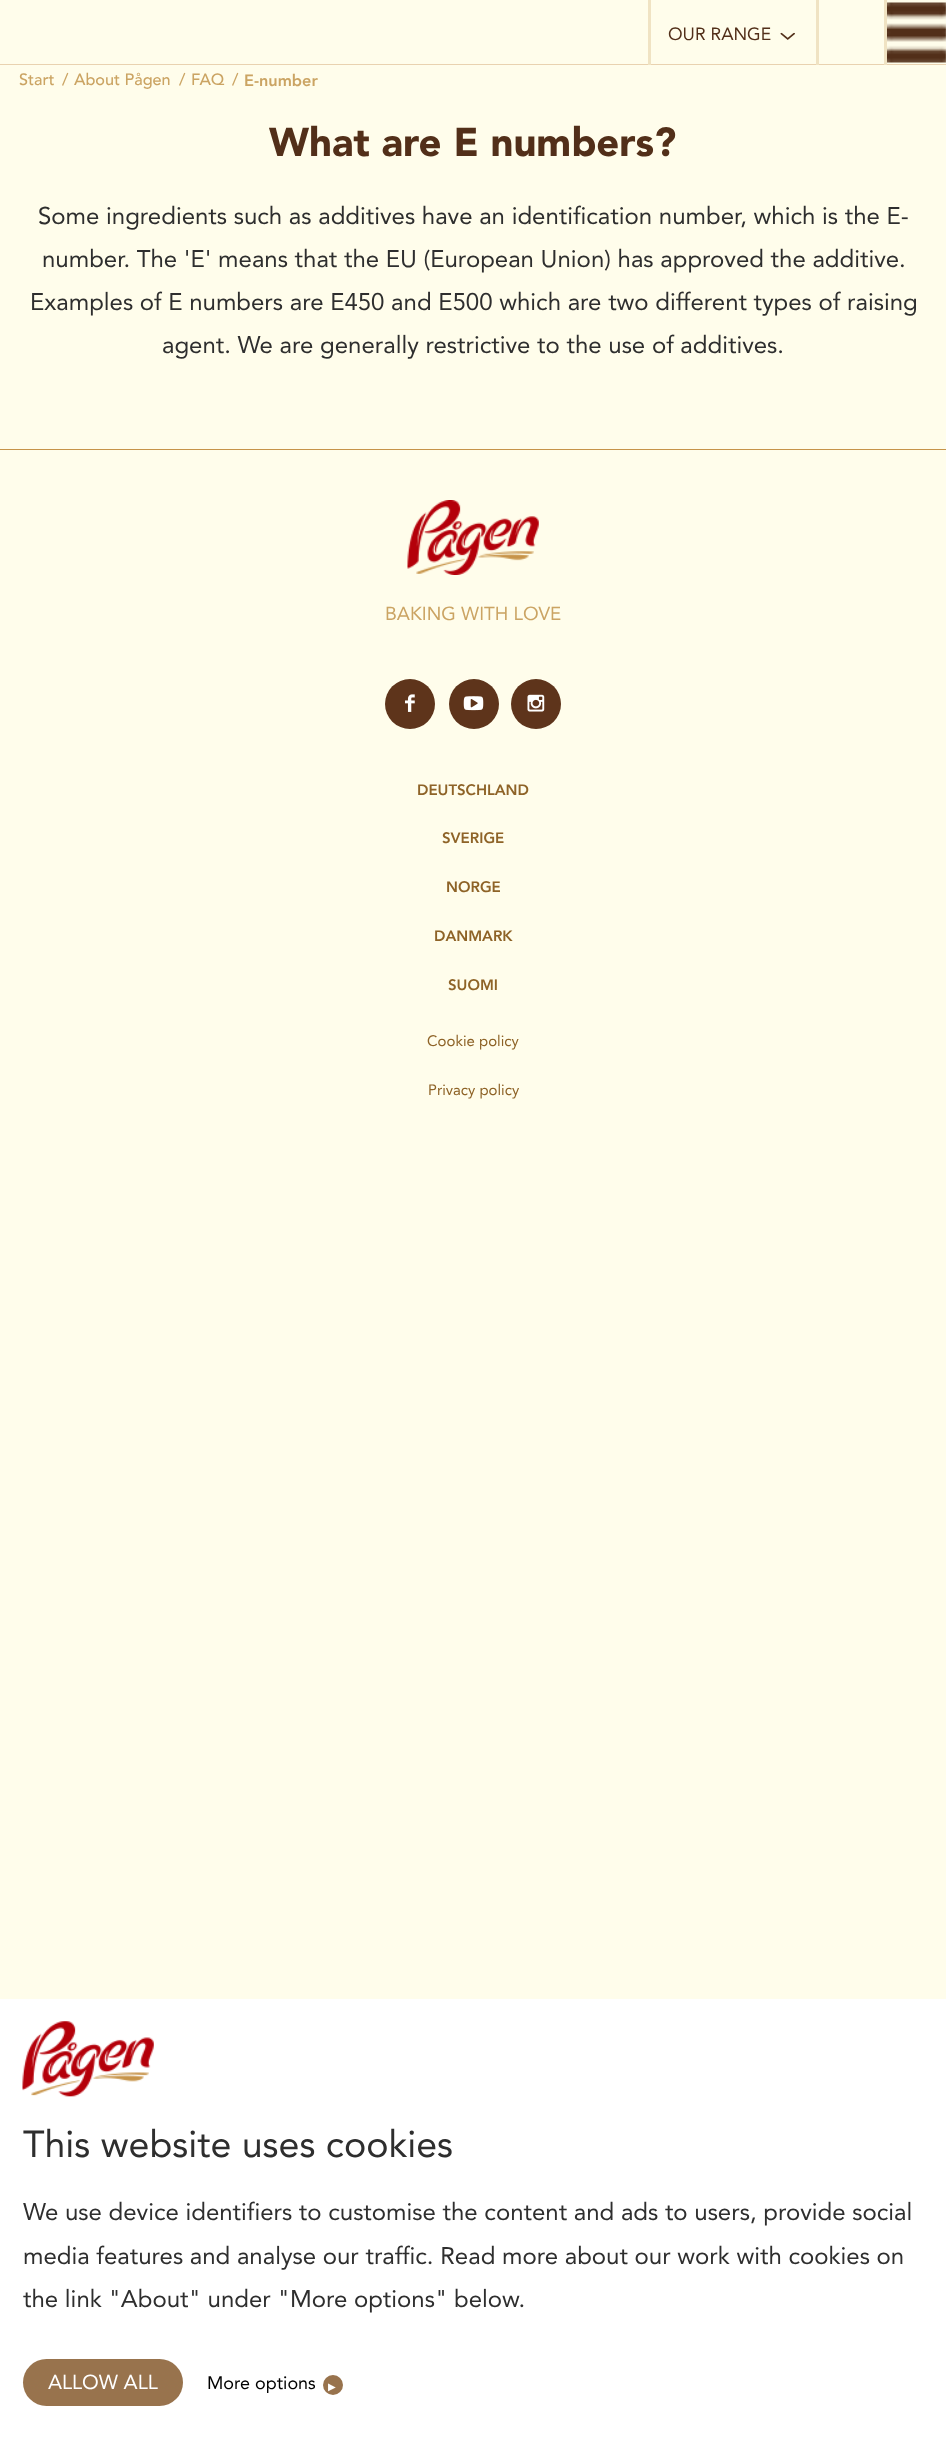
<svg xmlns="http://www.w3.org/2000/svg" xmlns:xlink="http://www.w3.org/1999/xlink" width="946" height="2452" viewBox="0 0 946 2452">
<style>
.cls-1{font:17.5px avenir;fill:#522f19}
.cls-2{font:500 16.25px avenir;fill:#cba463}
.cls-3{font:900 16.25px avenir;fill:#cba463}
.cls-4{font:900 40px 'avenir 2';fill:#522f19}
.cls-5{font:24px avenir;fill:#2e2e2e}
.cls-6{font:18.75px avenir;fill:#cba463}
.cls-7{font:900 15px avenir;fill:#8e6327}
.cls-8{font:15px avenir;fill:#8e6327}
.cls-9{font:37.5px avenir;fill:#2e2e2e}
.cls-10{font:20px avenir;fill:#ffffff}
.cls-11{font:18px avenir;fill:#000000}
.cls-12{font:10px DejaVu Sans;fill:#ffffff}
</style>
<rect width="100%" height="100%" fill="#fffdeb"/>
<rect fill="#e9d2b0" x="0" y="64" width="946" height="1"/>
<rect fill="#f0e3c3" x="648" y="0" width="3" height="65"/>
<image xlink:href="image0.png" x="780" y="32" width="15" height="8"/>
<rect fill="#f0e3c3" x="816" y="0" width="3" height="65"/>
<image xlink:href="image1.png" x="887" y="2" width="59" height="61"/>
<rect fill="#f0e3c3" x="884" y="0" width="3" height="65"/>
<rect fill="#c69349" x="0" y="449" width="946" height="1"/>
<image xlink:href="image2.png" x="407" y="500" width="132" height="75"/>
<circle fill="#5e341b" cx="410" cy="704" r="25"/>
<image xlink:href="image3.png" x="405" y="694" width="10" height="18"/>
<circle fill="#5e341b" cx="474" cy="704" r="25"/>
<image xlink:href="image4.png" x="463" y="696" width="21" height="15"/>
<circle fill="#5e341b" cx="536" cy="704" r="25"/>
<image xlink:href="image5.png" x="527" y="694" width="18" height="18"/>
<rect fill="#ffffff" x="0" y="1999" width="946" height="453"/>
<image xlink:href="image6.png" x="22" y="2021" width="132" height="76"/>
<rect fill="#98734d" x="23" y="2359" width="160" height="47" rx="23.5"/>
<circle fill="#98734d" cx="333" cy="2385" r="10"/>
<text class="cls-1" x="668" y="40">OUR RANGE</text>
<text class="cls-2" x="19" y="85">Start</text>
<text class="cls-2" x="62" y="85">/</text>
<text class="cls-2" x="74" y="85">About Pågen</text>
<text class="cls-2" x="179" y="85">/</text>
<text class="cls-2" x="191" y="85">FAQ</text>
<text class="cls-2" x="232" y="85">/</text>
<text class="cls-3" x="244" y="86">E-number</text>
<text class="cls-4" x="269" y="156">What are E numbers?</text>
<text class="cls-5" x="38" y="224">Some ingredients such as additives have an identification number, which is the E-</text>
<text class="cls-5" x="42" y="267">number. The 'E' means that the EU (European Union) has approved the additive.</text>
<text class="cls-5" x="30" y="310">Examples of E numbers are E450 and E500 which are two different types of raising</text>
<text class="cls-5" x="162" y="353">agent. We are generally restrictive to the use of additives.</text>
<text class="cls-6" x="385" y="620">BAKING WITH LOVE</text>
<text class="cls-7" x="417" y="795">DEUTSCHLAND</text>
<text class="cls-7" x="442" y="843">SVERIGE</text>
<text class="cls-7" x="446" y="892">NORGE</text>
<text class="cls-7" x="434" y="941">DANMARK</text>
<text class="cls-7" x="448" y="990">SUOMI</text>
<text class="cls-8" x="427" y="1046">Cookie policy</text>
<text class="cls-8" x="428" y="1095">Privacy policy</text>
<text class="cls-9" x="23" y="2157">This website uses cookies</text>
<text class="cls-5"><tspan x="23" y="2220">We use device identifiers to customise the content and ads to users, provide social</tspan><tspan x="23" y="2264">media features and analyse our traffic. Read more about our work with cookies on</tspan><tspan x="23" y="2307">the link "About" under "More options" below.</tspan></text>
<text class="cls-10" x="48" y="2389">ALLOW ALL</text>
<text class="cls-11" x="207" y="2389">More options</text>
<text class="cls-12" x="328" y="2390">▶</text>
</svg>
